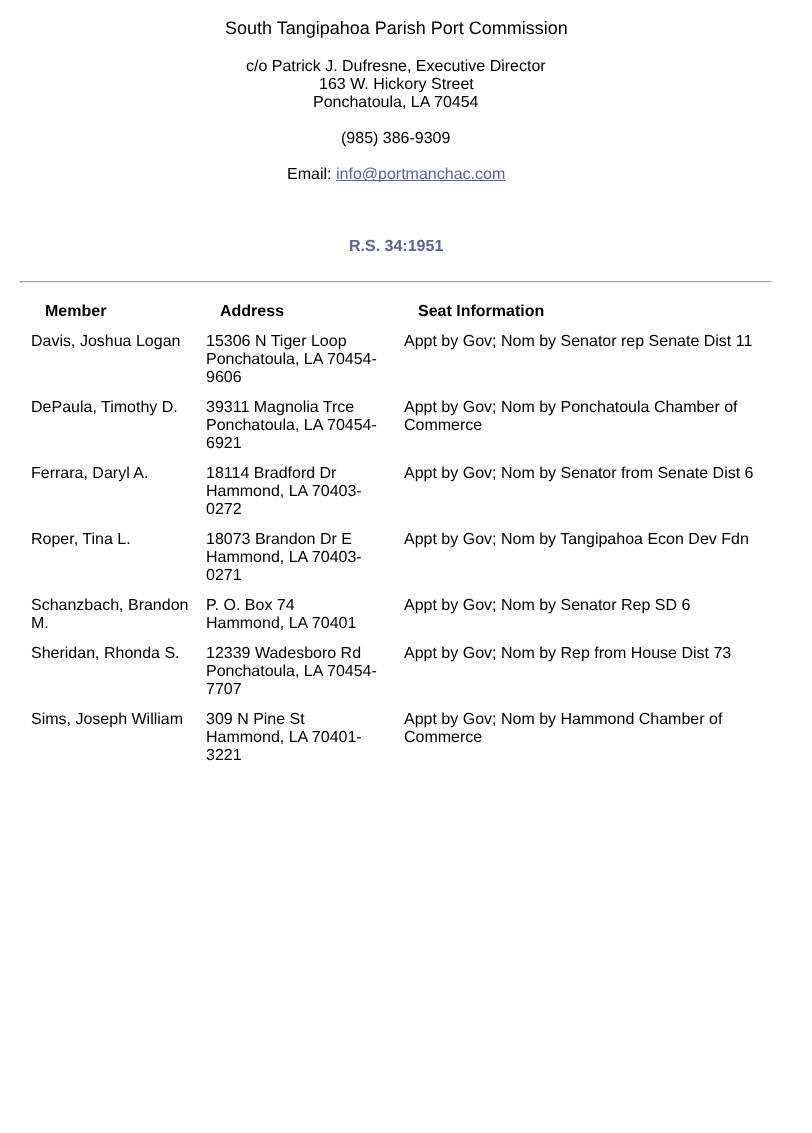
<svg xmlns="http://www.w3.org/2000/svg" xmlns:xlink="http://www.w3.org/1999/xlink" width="812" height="1133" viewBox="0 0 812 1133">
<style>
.cls-1{font:18px Liberation Sans;fill:#000000}
.cls-2{font:16px Liberation Sans;fill:#000000}
.cls-3{font:16px Liberation Sans;fill:#5b63a1}
.cls-4{font:bold 16px Liberation Sans;fill:#5b63a1}
.cls-5{font:bold 16px Liberation Sans;fill:#000000}
</style>
<rect width="100%" height="100%" fill="#ffffff"/>
<rect fill="#5b63a1" x="336" y="180" width="169" height="1"/>
<rect fill="#9f9f9f" x="20" y="281" width="752" height="1"/>
<rect fill="#eeeeee" x="771" y="281" width="1" height="2"/>
<rect fill="#eeeeee" x="20" y="282" width="752" height="1"/>
<rect fill="#9f9f9f" x="20" y="281" width="1" height="2"/>
<text class="cls-1" x="225" y="34">South Tangipahoa Parish Port Commission</text>
<text class="cls-2" x="246" y="71">c/o Patrick J. Dufresne, Executive Director</text>
<text class="cls-2" x="319" y="89">163 W. Hickory Street</text>
<text class="cls-2" x="313" y="107">Ponchatoula, LA 70454</text>
<text class="cls-2" x="341" y="143">(985) 386-9309</text>
<text class="cls-2" x="287" y="179">Email:</text>
<text class="cls-3" x="336" y="179">info@portmanchac.com</text>
<text class="cls-4" x="349" y="251">R.S. 34:1951</text>
<text class="cls-5" x="45" y="316">Member</text>
<text class="cls-5" x="220" y="316">Address</text>
<text class="cls-5" x="418" y="316">Seat Information</text>
<text class="cls-2" x="31" y="346">Davis, Joshua Logan</text>
<text class="cls-2"><tspan x="206" y="346">15306 N Tiger Loop</tspan><tspan x="206" y="364">Ponchatoula, LA 70454-</tspan><tspan x="206" y="382">9606</tspan></text>
<text class="cls-2" x="404" y="346">Appt by Gov; Nom by Senator rep Senate Dist 11</text>
<text class="cls-2" x="31" y="412">DePaula, Timothy D.</text>
<text class="cls-2"><tspan x="206" y="412">39311 Magnolia Trce</tspan><tspan x="206" y="430">Ponchatoula, LA 70454-</tspan><tspan x="206" y="448">6921</tspan></text>
<text class="cls-2"><tspan x="404" y="412">Appt by Gov; Nom by Ponchatoula Chamber of</tspan><tspan x="404" y="430">Commerce</tspan></text>
<text class="cls-2" x="31" y="478">Ferrara, Daryl A.</text>
<text class="cls-2"><tspan x="206" y="478">18114 Bradford Dr</tspan><tspan x="206" y="496">Hammond, LA 70403-</tspan><tspan x="206" y="514">0272</tspan></text>
<text class="cls-2" x="404" y="478">Appt by Gov; Nom by Senator from Senate Dist 6</text>
<text class="cls-2" x="31" y="544">Roper, Tina L.</text>
<text class="cls-2"><tspan x="206" y="544">18073 Brandon Dr E</tspan><tspan x="206" y="562">Hammond, LA 70403-</tspan><tspan x="206" y="580">0271</tspan></text>
<text class="cls-2" x="404" y="544">Appt by Gov; Nom by Tangipahoa Econ Dev Fdn</text>
<text class="cls-2"><tspan x="31" y="610">Schanzbach, Brandon</tspan><tspan x="31" y="628">M.</tspan></text>
<text class="cls-2"><tspan x="206" y="610">P. O. Box 74</tspan><tspan x="206" y="628">Hammond, LA 70401</tspan></text>
<text class="cls-2" x="404" y="610">Appt by Gov; Nom by Senator Rep SD 6</text>
<text class="cls-2" x="31" y="658">Sheridan, Rhonda S.</text>
<text class="cls-2"><tspan x="206" y="658">12339 Wadesboro Rd</tspan><tspan x="206" y="676">Ponchatoula, LA 70454-</tspan><tspan x="206" y="694">7707</tspan></text>
<text class="cls-2" x="404" y="658">Appt by Gov; Nom by Rep from House Dist 73</text>
<text class="cls-2" x="31" y="724">Sims, Joseph William</text>
<text class="cls-2"><tspan x="206" y="724">309 N Pine St</tspan><tspan x="206" y="742">Hammond, LA 70401-</tspan><tspan x="206" y="760">3221</tspan></text>
<text class="cls-2"><tspan x="404" y="724">Appt by Gov; Nom by Hammond Chamber of</tspan><tspan x="404" y="742">Commerce</tspan></text>
</svg>
